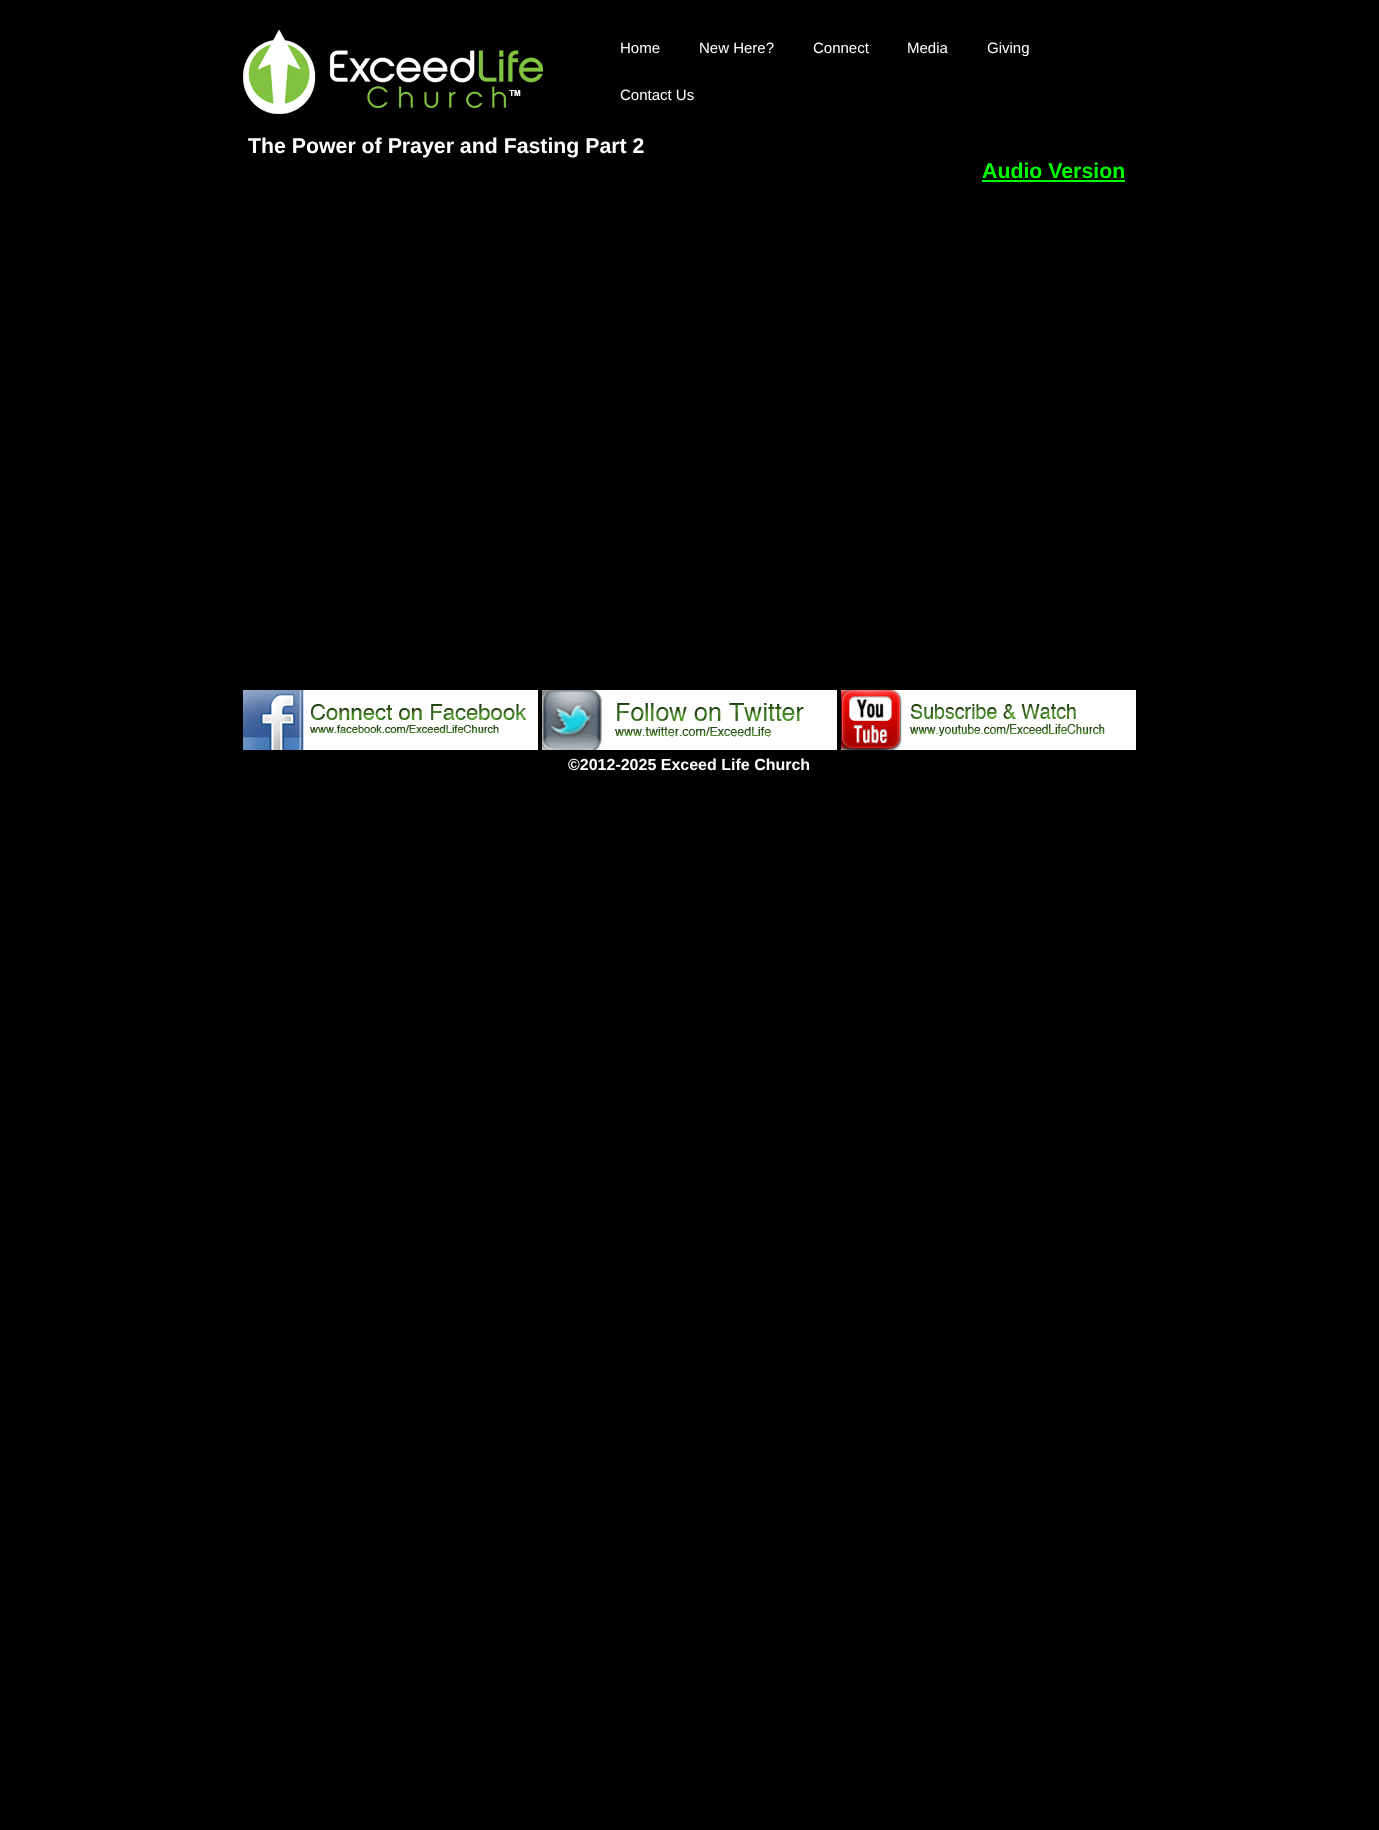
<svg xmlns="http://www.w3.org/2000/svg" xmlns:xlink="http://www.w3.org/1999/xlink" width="1379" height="1830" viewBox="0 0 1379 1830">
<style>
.cls-1{font:15px Liberation Sans;fill:#ffffff}
.cls-2{font:bold 21.3px Liberation Sans;fill:#ffffff}
.cls-3{font:bold 21.3px Liberation Sans;fill:#00ff00}
.cls-4{font:bold 16px Liberation Sans;fill:#ffffff}
</style>
<rect width="100%" height="100%" fill="#000000"/>
<image xlink:href="image0.png" x="243" y="30" width="300" height="84"/>
<rect fill="#00ff00" x="982" y="180" width="143" height="2"/>
<image xlink:href="image1.png" x="243" y="690" width="295" height="60"/>
<image xlink:href="image2.png" x="542" y="690" width="295" height="60"/>
<image xlink:href="image3.png" x="841" y="690" width="295" height="60"/>
<text class="cls-1" x="620" y="53">Home</text>
<text class="cls-1" x="699" y="53">New Here?</text>
<text class="cls-1" x="813" y="53">Connect</text>
<text class="cls-1" x="907" y="53">Media</text>
<text class="cls-1" x="987" y="53">Giving</text>
<text class="cls-1" x="620" y="100">Contact Us</text>
<text class="cls-2" x="248" y="153">The Power of Prayer and Fasting Part 2</text>
<text class="cls-3" x="982" y="178">Audio Version</text>
<text class="cls-4" x="568" y="770">©2012-2025 Exceed Life Church</text>
</svg>
